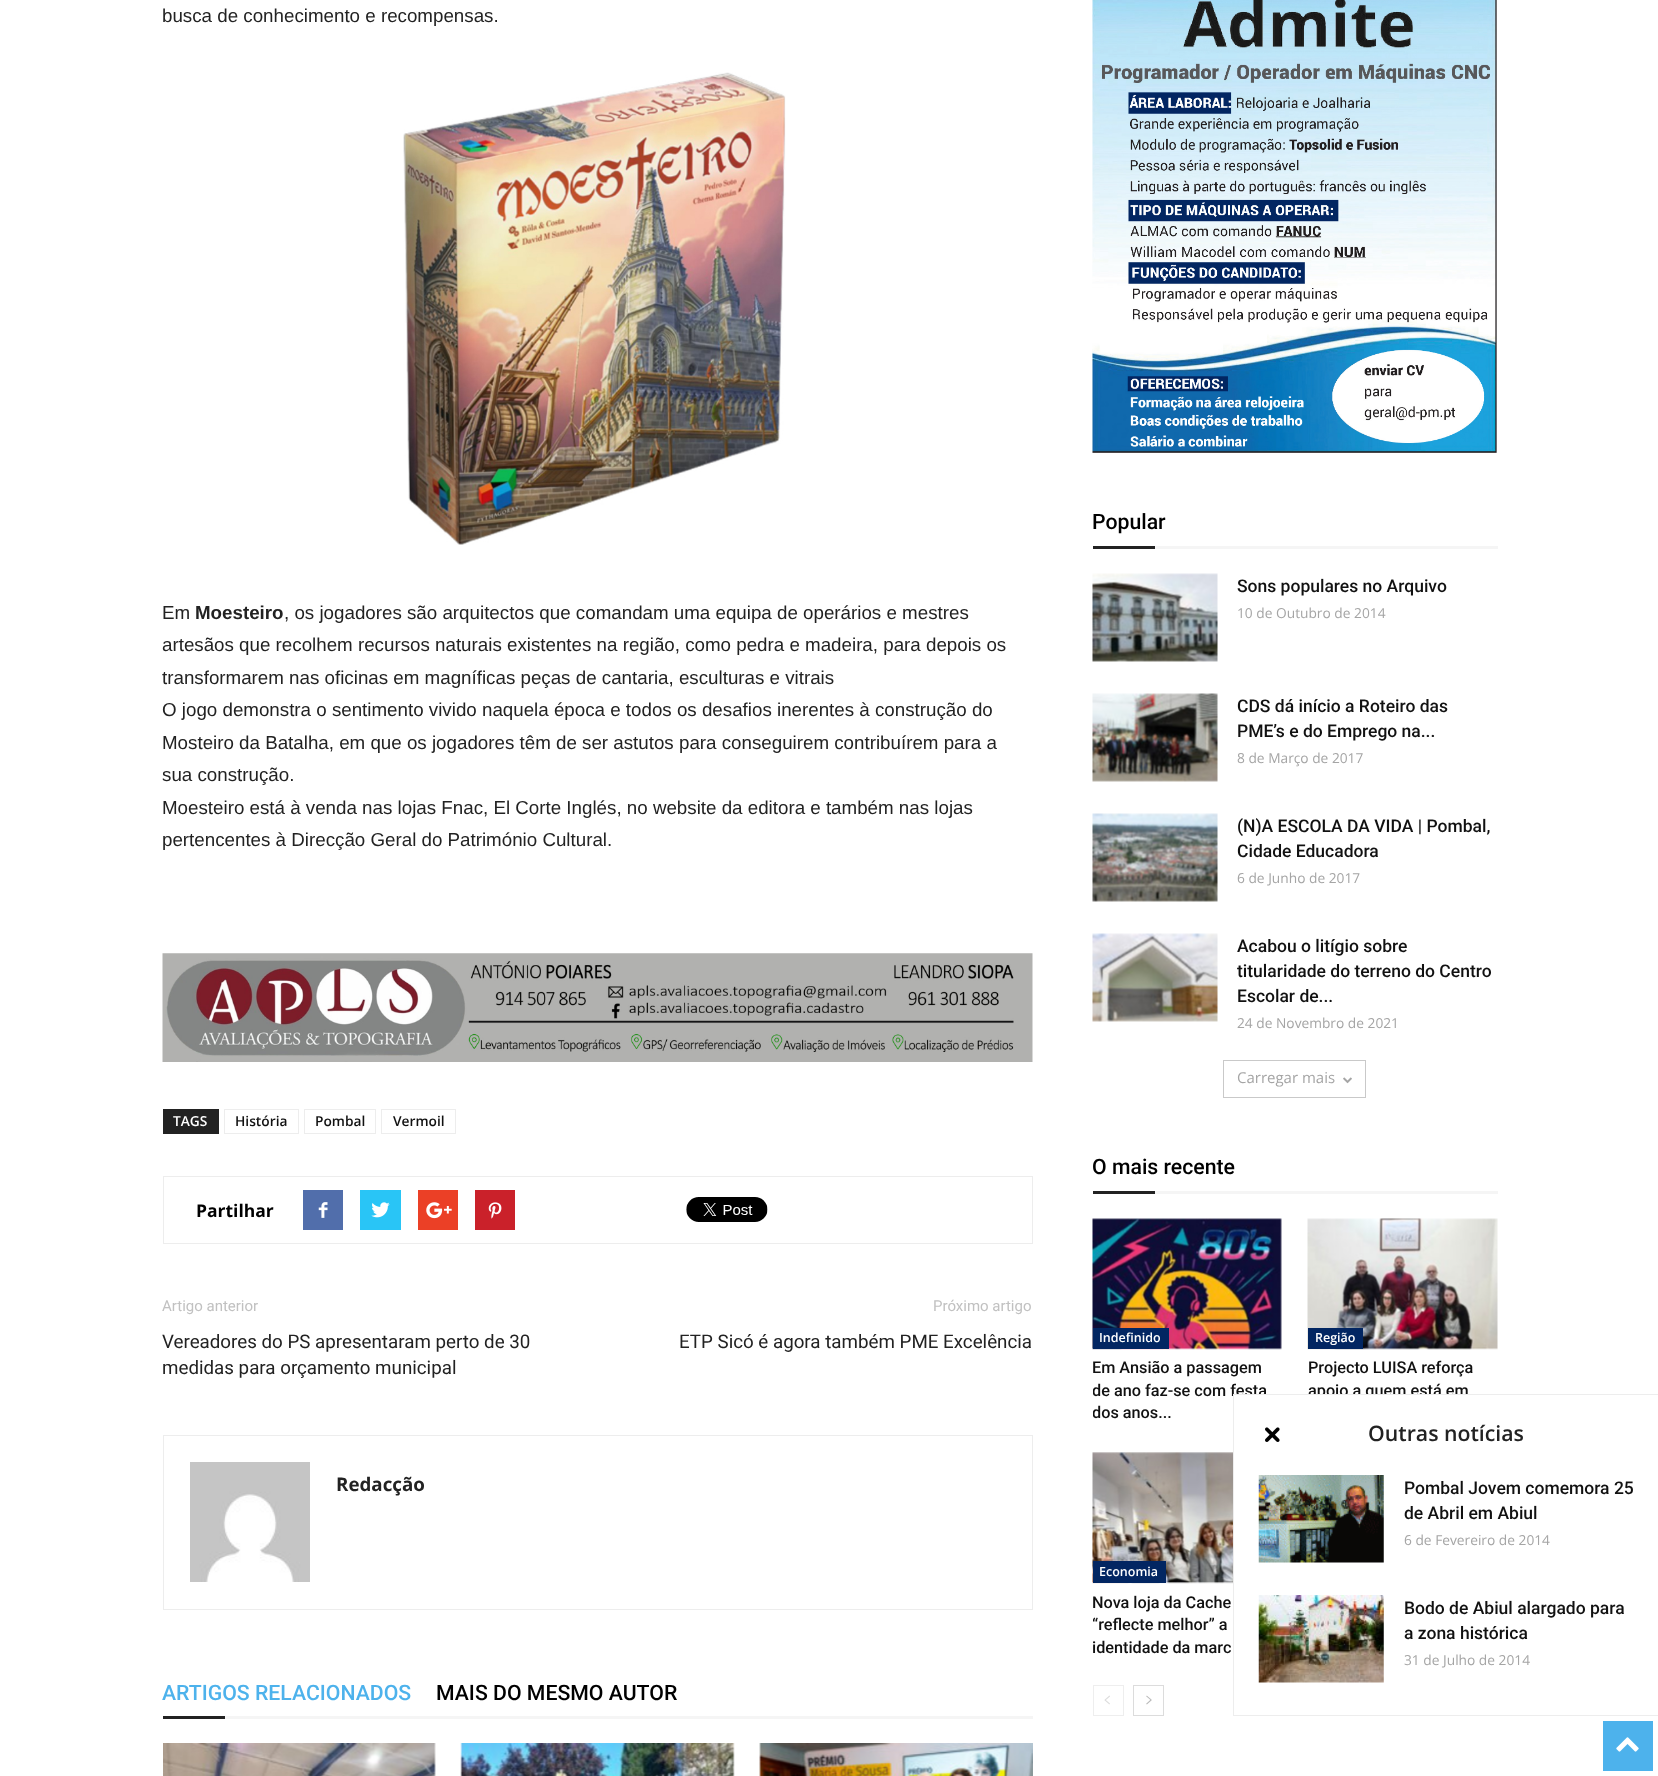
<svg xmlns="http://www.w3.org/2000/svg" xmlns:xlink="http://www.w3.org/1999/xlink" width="1658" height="1776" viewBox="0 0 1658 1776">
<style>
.cls-1{font:18.75px Liberation Sans;fill:#222222}
.cls-2{font:bold 18.75px Liberation Sans;fill:#222222}
.cls-3{font:600 13.75px Open Sans;fill:#ffffff}
.cls-4{font:600 13.75px Open Sans;fill:#111111}
.cls-5{font:bold 17.5px Open Sans;fill:#000000}
.cls-6{font:15px Roboto;fill:#c1c1c1}
.cls-7{font:18.75px Roboto;fill:#222222}
.cls-8{font:bold 18.75px Open Sans;fill:#222222}
.cls-9{font:500 21.25px Roboto;fill:#4db2ec}
.cls-10{font:500 21.25px Roboto;fill:#000000}
.cls-11{font:500 17.5px Roboto;fill:#111111}
.cls-12{font:13.75px Open Sans;fill:#a5a5a5}
.cls-13{font:15px Open Sans;fill:#a5a5a5}
.cls-14{font:600 12.5px Open Sans;fill:#ffffff}
.cls-15{font:500 16.25px Roboto;fill:#111111}
.cls-16{font:600 21.25px Open Sans;fill:#222222}
</style>
<defs>
<clipPath id="clip1"><rect x="1093" y="1158" width="405" height="558"/></clipPath>
</defs>
<rect width="100%" height="100%" fill="#ffffff"/>
<image xlink:href="image0.png" x="403" y="72" width="383" height="473"/>
<image xlink:href="image1.png" x="162" y="953" width="871" height="109"/>
<rect fill="#222222" x="163" y="1109" width="56" height="25"/>
<rect fill="none" stroke="#ededed" x="224.5" y="1109.5" width="74" height="24"/>
<rect fill="none" stroke="#ededed" x="304.5" y="1109.5" width="71" height="24"/>
<rect fill="none" stroke="#ededed" x="381.5" y="1109.5" width="74" height="24"/>
<rect fill="none" stroke="#ededed" x="163.5" y="1176.5" width="869" height="67"/>
<rect fill="#516eab" x="303" y="1190" width="40" height="40"/>
<image xlink:href="image2.png" x="318" y="1202" width="10" height="16"/>
<rect fill="#29c5f6" x="360" y="1190" width="41" height="40"/>
<image xlink:href="image3.png" x="371" y="1202" width="19" height="16"/>
<rect fill="#eb4026" x="418" y="1190" width="40" height="40"/>
<image xlink:href="image4.png" x="426" y="1202" width="26" height="17"/>
<rect fill="#ca212a" x="475" y="1190" width="40" height="40"/>
<image xlink:href="image5.png" x="488" y="1202" width="14" height="17"/>
<image xlink:href="image6.png" x="686" y="1197" width="82" height="25"/>
<rect fill="none" stroke="#ededed" x="163.5" y="1435.5" width="869" height="174"/>
<image xlink:href="image7.png" x="190" y="1462" width="120" height="120"/>
<rect fill="#222222" x="163" y="1716" width="62" height="3"/>
<rect fill="#f5f5f5" x="225" y="1716" width="808" height="3"/>
<image xlink:href="image8.png" x="163" y="1743" width="273" height="33"/>
<image xlink:href="image9.png" x="460" y="1743" width="275" height="33"/>
<image xlink:href="image10.png" x="759" y="1743" width="274" height="33"/>
<image xlink:href="image11.png" x="1092" y="0" width="405" height="453"/>
<rect fill="#222222" x="1093" y="546" width="62" height="3"/>
<rect fill="#f5f5f5" x="1155" y="546" width="343" height="3"/>
<image xlink:href="image12.png" x="1092" y="573" width="126" height="89"/>
<image xlink:href="image13.png" x="1092" y="693" width="126" height="89"/>
<image xlink:href="image14.png" x="1092" y="813" width="126" height="89"/>
<image xlink:href="image15.png" x="1092" y="933" width="126" height="89"/>
<rect fill="none" stroke="#c9c9c9" x="1223.5" y="1060.5" width="142" height="37"/>
<image xlink:href="image16.png" x="1343" y="1077" width="9" height="7"/>
<rect fill="#222222" x="1093" y="1191" width="62" height="3"/>
<rect fill="#f5f5f5" x="1155" y="1191" width="343" height="3"/>
<image xlink:href="image17.png" x="1092" y="1218" width="190" height="132"/>
<rect fill="#022662" x="1093" y="1328" width="76" height="21"/>
<image xlink:href="image18.png" x="1307" y="1218" width="191" height="132"/>
<rect fill="#022662" x="1308" y="1328" width="55" height="21"/>
<image xlink:href="image19.png" x="1092" y="1452" width="141" height="132"/>
<rect fill="#022662" x="1093" y="1561" width="73" height="22"/>
<rect fill="none" stroke="#eeeeee" x="1093.5" y="1685.5" width="30" height="30"/>
<image xlink:href="image20.png" x="1104" y="1695" width="6" height="10"/>
<rect fill="none" stroke="#dcdcdc" x="1133.5" y="1685.5" width="30" height="30"/>
<image xlink:href="image21.png" x="1146" y="1695" width="6" height="10"/>
<rect fill="#ededed" x="1233" y="1715" width="425" height="1"/>
<image xlink:href="image22.png" x="1265" y="1427" width="15" height="15"/>
<image xlink:href="image23.png" x="1258" y="1475" width="126" height="88"/>
<image xlink:href="image24.png" x="1258" y="1595" width="126" height="88"/>
<rect fill="#4db2ec" x="1603" y="1721" width="50" height="50"/>
<image xlink:href="image25.png" x="1616" y="1737" width="23" height="15"/>
<text class="cls-1" x="162" y="22">busca de conhecimento e recompensas.</text>
<text class="cls-1" x="162" y="619">Em</text>
<text class="cls-2" x="195" y="619">Moesteiro</text>
<text class="cls-1" x="284" y="619">, os jogadores são arquitectos que comandam uma equipa de operários e mestres</text>
<text class="cls-1"><tspan x="162" y="651">artesãos que recolhem recursos naturais existentes na região, como pedra e madeira, para depois os</tspan><tspan x="162" y="684">transformarem nas oficinas em magníficas peças de cantaria, esculturas e vitrais</tspan><tspan x="162" y="716">O jogo demonstra o sentimento vivido naquela época e todos os desafios inerentes à construção do</tspan><tspan x="162" y="749">Mosteiro da Batalha, em que os jogadores têm de ser astutos para conseguirem contribuírem para a</tspan><tspan x="162" y="781">sua construção.</tspan><tspan x="162" y="814">Moesteiro está à venda nas lojas Fnac, El Corte Inglés, no website da editora e também nas lojas</tspan><tspan x="162" y="846">pertencentes à Direcção Geral do Património Cultural.</tspan></text>
<text class="cls-3" x="173" y="1126">TAGS</text>
<text class="cls-4" x="235" y="1126">História</text>
<text class="cls-4" x="315" y="1126">Pombal</text>
<text class="cls-4" x="393" y="1126">Vermoil</text>
<text class="cls-5" x="196" y="1217">Partilhar</text>
<text class="cls-6" x="162" y="1311">Artigo anterior</text>
<text class="cls-7"><tspan x="162" y="1348">Vereadores do PS apresentaram perto de 30</tspan><tspan x="162" y="1374">medidas para orçamento municipal</tspan></text>
<text class="cls-6" x="933" y="1311">Próximo artigo</text>
<text class="cls-7" x="679" y="1348">ETP Sicó é agora também PME Excelência</text>
<text class="cls-8" x="336" y="1491">Redacção</text>
<text class="cls-9" x="162" y="1700">ARTIGOS RELACIONADOS</text>
<text class="cls-10" x="436" y="1700">MAIS DO MESMO AUTOR</text>
<text class="cls-10" x="1092" y="529">Popular</text>
<text class="cls-11" x="1237" y="592">Sons populares no Arquivo</text>
<text class="cls-12" x="1237" y="618">10 de Outubro de 2014</text>
<text class="cls-11"><tspan x="1237" y="712">CDS dá início a Roteiro das</tspan><tspan x="1237" y="737">PME’s e do Emprego na...</tspan></text>
<text class="cls-12" x="1237" y="763">8 de Março de 2017</text>
<text class="cls-11"><tspan x="1237" y="832">(N)A ESCOLA DA VIDA | Pombal,</tspan><tspan x="1237" y="857">Cidade Educadora</tspan></text>
<text class="cls-12" x="1237" y="883">6 de Junho de 2017</text>
<text class="cls-11"><tspan x="1237" y="952">Acabou o litígio sobre</tspan><tspan x="1237" y="977">titularidade do terreno do Centro</tspan><tspan x="1237" y="1002">Escolar de...</tspan></text>
<text class="cls-12" x="1237" y="1028">24 de Novembro de 2021</text>
<text class="cls-13" x="1237" y="1083">Carregar mais</text>
<text class="cls-10" x="1092" y="1174">O mais recente</text>
<text class="cls-14" x="1099" y="1342">Indefinido</text>
<text class="cls-15" x="1092" y="1373">Em Ansião a passagem</text>
<g clip-path="url(#clip1)">
<text class="cls-15"><tspan x="1092" y="1396">de ano faz-se com festa</tspan><tspan x="1092" y="1418">dos anos...</tspan></text>
</g>
<text class="cls-14" x="1315" y="1342">Região</text>
<text class="cls-15"><tspan x="1308" y="1373">Projecto LUISA reforça</tspan><tspan x="1308" y="1396">apoio a quem está em</tspan></text>
<text class="cls-14" x="1099" y="1576">Economia</text>
<text class="cls-15" x="1092" y="1608">Nova loja da Cache</text>
<g clip-path="url(#clip1)">
<text class="cls-15" x="1092" y="1630">“reflecte melhor” a</text>
</g>
<text class="cls-15" x="1092" y="1653">identidade da marc</text>
<rect fill="#ffffff" x="1237" y="1395" width="231" height="5"/>
<rect fill="#ededed" x="1233" y="1394" width="425" height="1"/>
<rect fill="#ededed" x="1233" y="1394" width="1" height="322"/>
<text class="cls-16" x="1368" y="1441">Outras notícias</text>
<text class="cls-11"><tspan x="1404" y="1494">Pombal Jovem comemora 25</tspan><tspan x="1404" y="1519">de Abril em Abiul</tspan></text>
<text class="cls-12" x="1404" y="1545">6 de Fevereiro de 2014</text>
<text class="cls-11"><tspan x="1404" y="1614">Bodo de Abiul alargado para</tspan><tspan x="1404" y="1639">a zona histórica</tspan></text>
<text class="cls-12" x="1404" y="1665">31 de Julho de 2014</text>
</svg>
